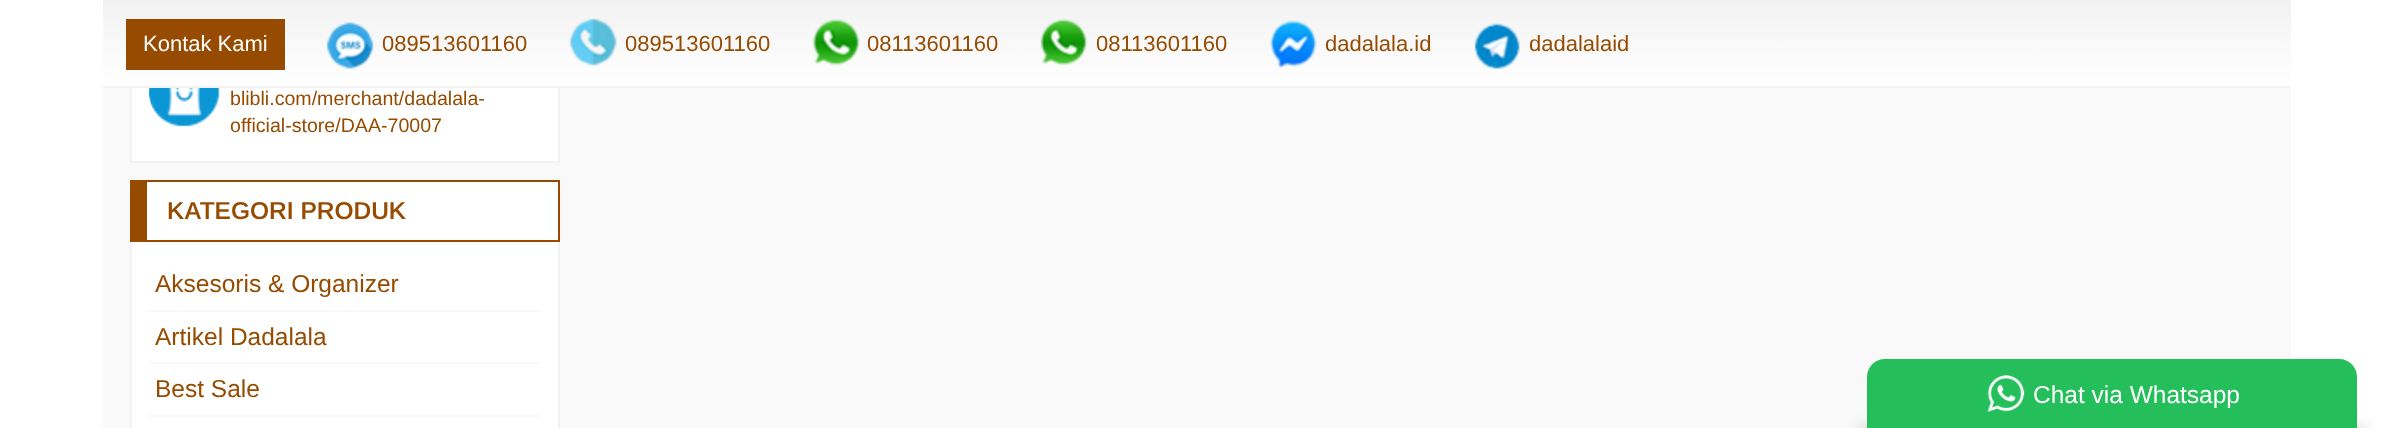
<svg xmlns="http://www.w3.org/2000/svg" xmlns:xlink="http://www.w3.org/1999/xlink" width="2392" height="428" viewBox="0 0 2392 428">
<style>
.cls-1{font:22px Arimo;fill:#ffffff}
.cls-2{font:22px Arimo;fill:#964b00}
.cls-3{font:19.6px Arimo;fill:#964b00}
.cls-4{font:600 24.5px Arimo;fill:#964b00}
.cls-5{font:24.5px Arimo;fill:#964b00}
.cls-6{font:24.5px Arimo;fill:#ffffff}
</style>
<defs>
<linearGradient id="g1" gradientUnits="userSpaceOnUse" x1="1197" y1="0" x2="1197" y2="86"><stop offset="0" stop-color="#f2f2f2"/><stop offset="1" stop-color="#ffffff"/></linearGradient>
<linearGradient id="g2" gradientUnits="userSpaceOnUse" x1="1197" y1="86" x2="1197" y2="172"><stop offset="0" stop-color="#f2f2f2"/><stop offset="1" stop-color="#ffffff"/></linearGradient>
</defs>
<rect width="100%" height="100%" fill="#ffffff"/>
<rect fill="#f9f9f9" x="103" y="88" width="2188" height="340"/>
<rect fill="#ffffff" x="132" y="88" width="426" height="73"/>
<rect fill="none" stroke="#f2f2f2" stroke-width="2" x="131" y="-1" width="428" height="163"/>
<rect fill="url(#g1)" x="103" y="0" width="2188" height="86"/>
<rect fill="url(#g2)" x="103" y="86" width="2188" height="2"/>
<rect fill="#964b00" x="126" y="19" width="159" height="51"/>
<image xlink:href="image0.png" x="326" y="22" width="48" height="47"/>
<image xlink:href="image1.png" x="569" y="18" width="48" height="48"/>
<image xlink:href="image2.png" x="812" y="18" width="48" height="48"/>
<image xlink:href="image3.png" x="1040" y="18" width="48" height="48"/>
<image xlink:href="image4.png" x="1270" y="20" width="47" height="48"/>
<image xlink:href="image5.png" x="1474" y="23" width="46" height="46"/>
<image xlink:href="image6.png" x="148" y="88" width="72" height="39"/>
<rect fill="#ffffff" stroke="#f2f2f2" stroke-width="2" x="131" y="181" width="428" height="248"/>
<rect fill="#964b00" x="147" y="180" width="413" height="2"/>
<rect fill="#964b00" x="558" y="180" width="2" height="62"/>
<rect fill="#964b00" x="147" y="240" width="413" height="2"/>
<rect fill="#964b00" x="130" y="180" width="17" height="62"/>
<rect fill="#f9f9f9" x="149" y="310" width="392" height="2"/>
<rect fill="#f9f9f9" x="149" y="362" width="392" height="2"/>
<rect fill="#f9f9f9" x="149" y="415" width="392" height="2"/>
<rect fill="#333333" fill-opacity="0.09" filter="blur(5px)" x="1857" y="422" width="511" height="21"/>
<path fill="#24be5b" d="M1885 359H2339C2349 359 2357 367 2357 377V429H1867V377C1867 367 1875 359 1885 359Z"/>
<image xlink:href="image7.png" x="1987" y="375" width="38" height="38"/>
<text class="cls-1" x="143" y="51">Kontak Kami</text>
<text class="cls-2" x="382" y="51">089513601160</text>
<text class="cls-2" x="625" y="51">089513601160</text>
<text class="cls-2" x="867" y="51">08113601160</text>
<text class="cls-2" x="1096" y="51">08113601160</text>
<text class="cls-2" x="1325" y="51">dadalala.id</text>
<text class="cls-2" x="1529" y="51">dadalalaid</text>
<text class="cls-3"><tspan x="230" y="105">blibli.com/merchant/dadalala-</tspan><tspan x="230" y="132">official-store/DAA-70007</tspan></text>
<text class="cls-4" x="167" y="219">KATEGORI PRODUK</text>
<text class="cls-5" x="155" y="292">Aksesoris &amp; Organizer</text>
<text class="cls-5" x="155" y="345">Artikel Dadalala</text>
<text class="cls-5" x="155" y="397">Best Sale</text>
<text class="cls-6" x="2033" y="403">Chat via Whatsapp</text>
</svg>
